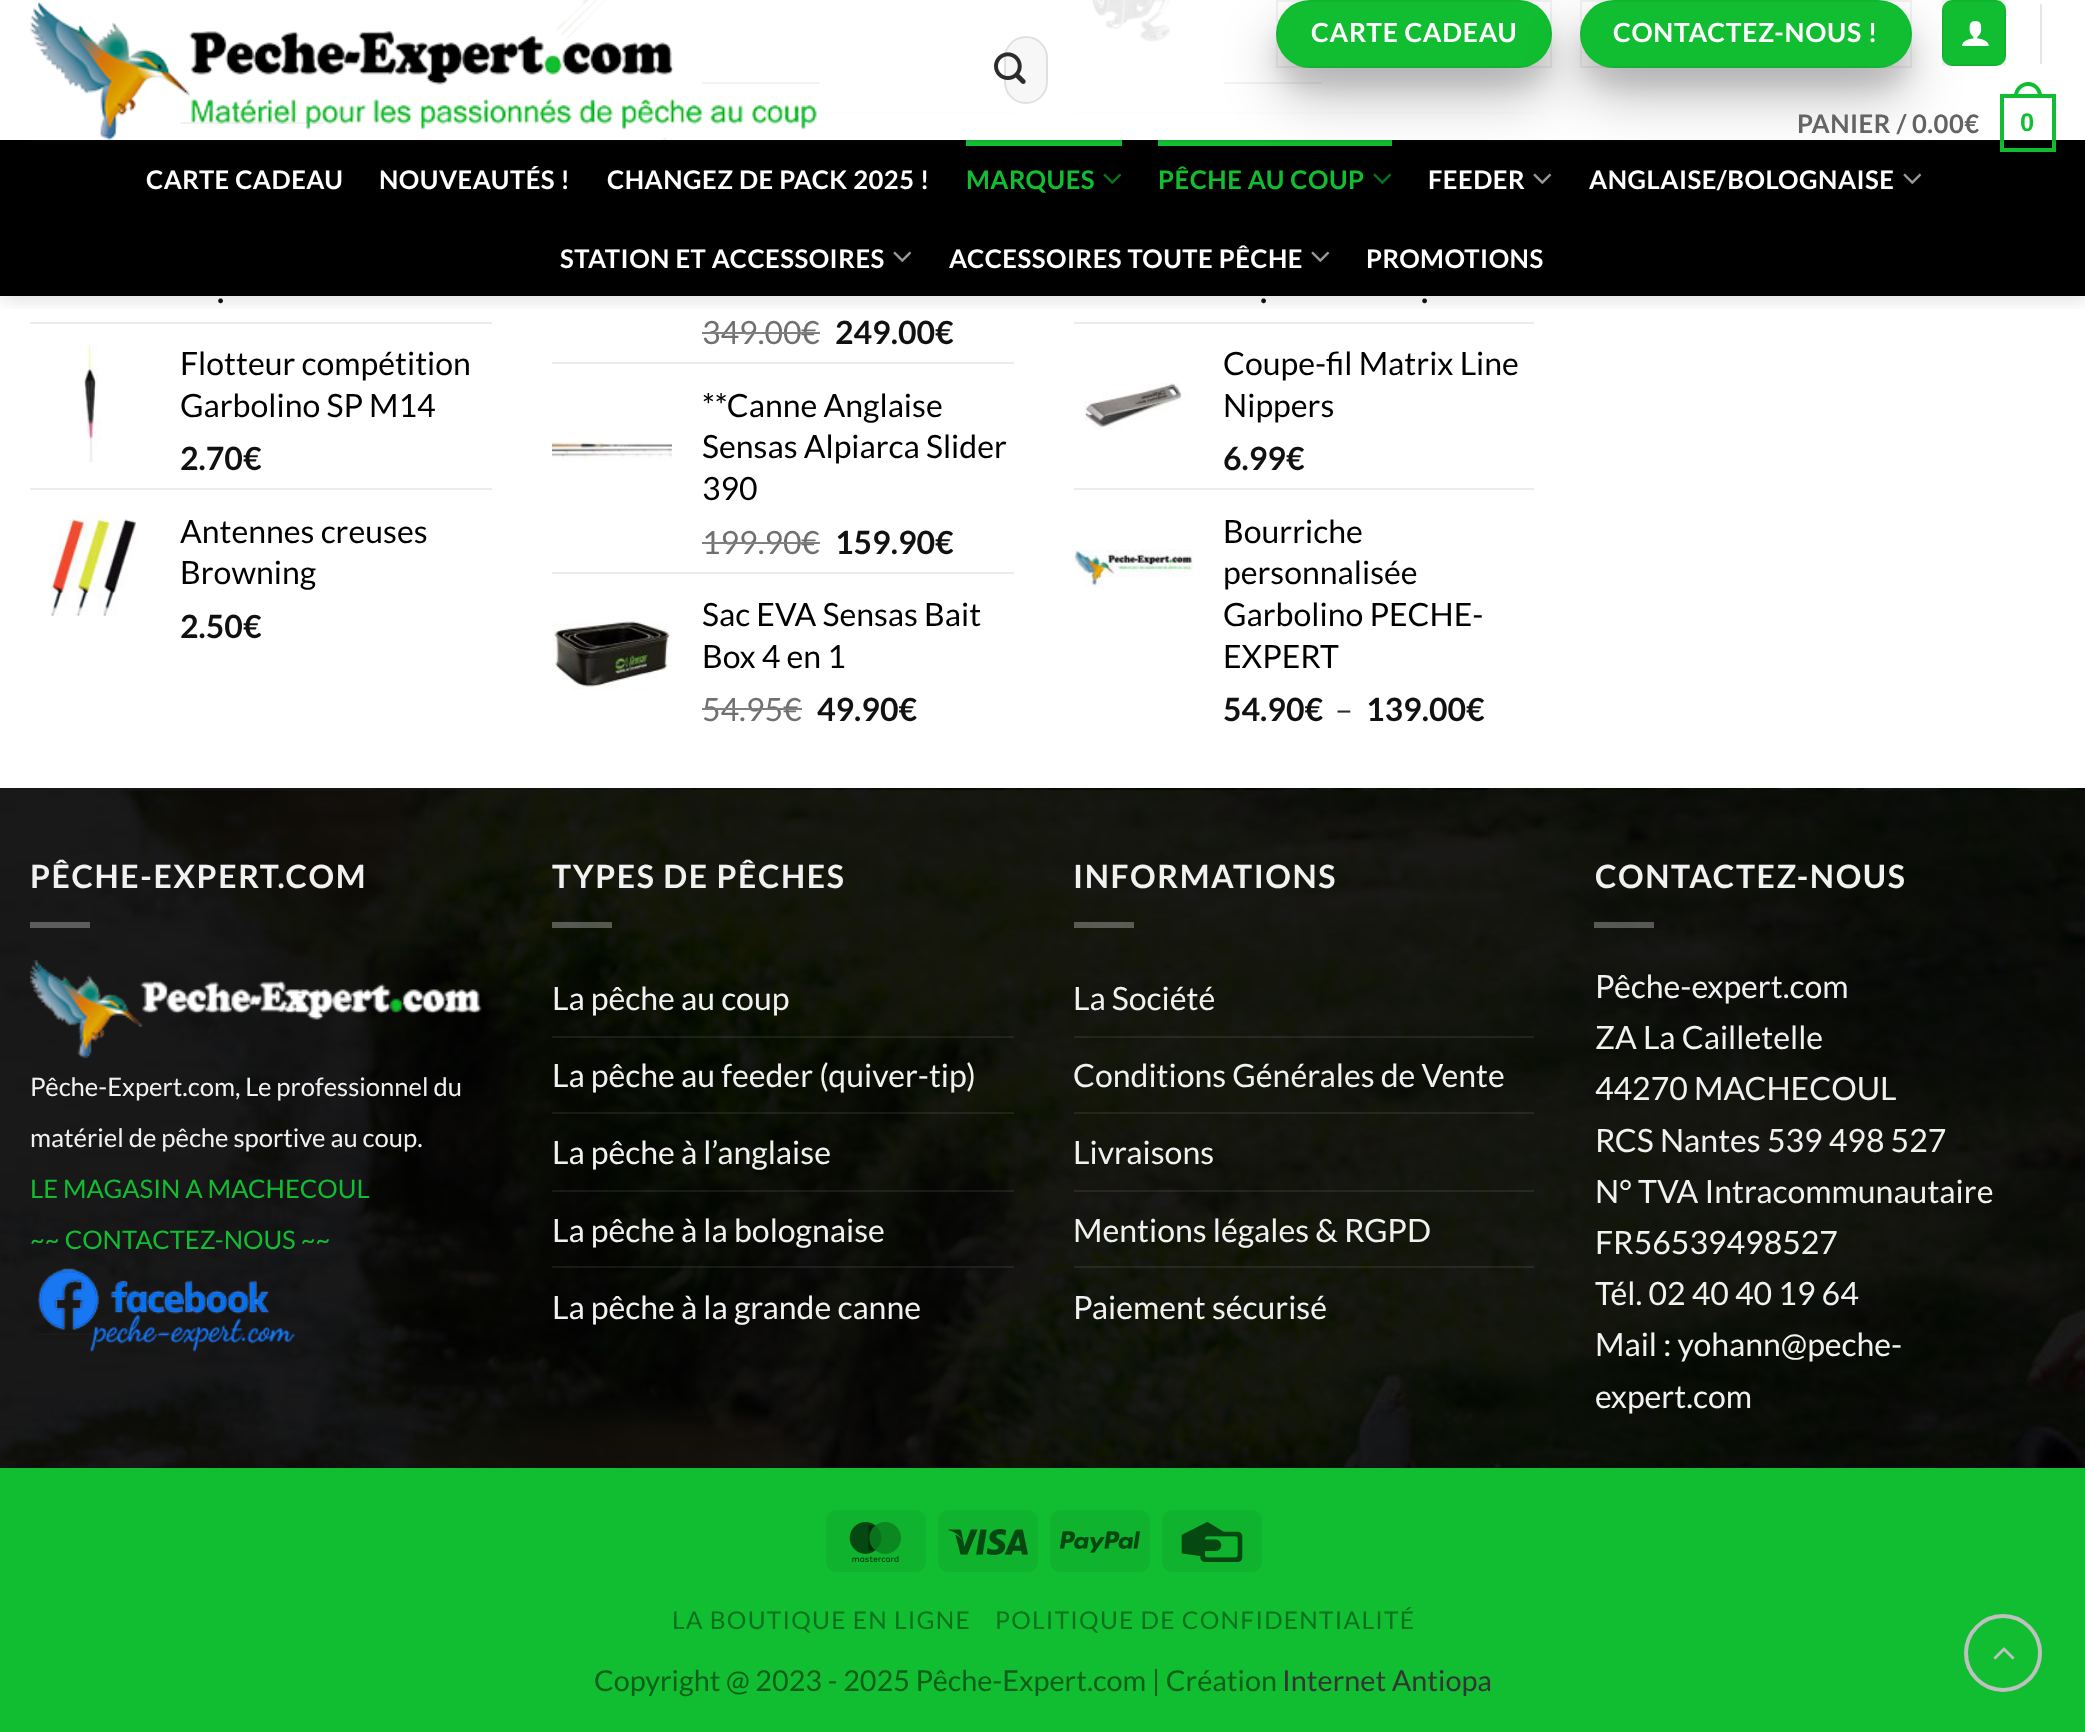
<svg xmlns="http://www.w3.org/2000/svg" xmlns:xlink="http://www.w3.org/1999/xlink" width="2085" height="1732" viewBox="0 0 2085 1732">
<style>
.cls-1{font:bold 26.4px Lato;letter-spacing:0.75px;fill:#ffffff}
.cls-2{font:bold 25.6px Lato;letter-spacing:0.5px;fill:#646464}
.cls-3{font:bold 25.6px Liberation Sans;letter-spacing:0.5px;fill:#11be31}
.cls-4{font:bold 25.6px Lato;letter-spacing:0.5px;fill:#ffffff}
.cls-5{font:bold 25.6px Lato;letter-spacing:0.5px;fill:#11be31}
.cls-6{font:bold 32px Lato;fill:#111111}
.cls-7{font:32px Lato;fill:#000000}
.cls-8{font:32px Lato;fill:#707070}
.cls-9{font:32px Lato;fill:#2c2c2c}
.cls-10{font:bold 32px Lato;letter-spacing:1.6px;fill:#f1f1f1}
.cls-11{font:25.6px Lato;fill:#f1f1f1}
.cls-12{font:25.6px Lato;fill:#11be31}
.cls-13{font:32px Lato;fill:#f1f1f1}
.cls-14{font:24.5px Lato;letter-spacing:1.25px;fill:#0a721e}
.cls-15{font:28.8px Lato;fill:#095f19}
.cls-16{font:28.8px Lato;fill:#343434}
</style>
<defs>
<clipPath id="clip1"><rect x="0" y="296" width="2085" height="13"/></clipPath>
</defs>
<rect width="100%" height="100%" fill="#ffffff"/>
<rect fill="#808080" x="180" y="122" width="144" height="2"/>
<rect fill="#ececec" x="30" y="322" width="462" height="2"/>
<image xlink:href="image7.png" x="552" y="0" width="66" height="41"/>
<rect fill="#808080" x="702" y="82" width="118" height="2"/>
<rect fill="#ececec" x="552" y="112" width="462" height="2"/>
<image xlink:href="image8.png" x="553" y="134" width="115" height="6"/>
<image xlink:href="image11.png" x="1085" y="0" width="89" height="44"/>
<rect fill="#808080" x="1224" y="82" width="98" height="2"/>
<rect fill="#ececec" x="1074" y="112" width="460" height="2"/>
<rect fill="#ececec" x="1074" y="322" width="460" height="2"/>
<g clip-path="url(#clip1)">
<rect fill="#000000" fill-opacity="0.15" filter="blur(10px)" x="2" y="2" width="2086" height="296"/>
</g>
<rect fill="#ffffff" fill-opacity="0.9" x="180" y="0" width="1354" height="140"/>
<image xlink:href="image0.png" x="30" y="1" width="787" height="139"/>
<rect fill="#f7f7f7" x="1004" y="36" width="44" height="68" rx="22"/>
<rect fill="none" stroke="#000000" stroke-opacity="0.09" stroke-width="2" x="1005" y="37" width="42" height="66" rx="21"/>
<image xlink:href="image1.png" x="994" y="52" width="32" height="32"/>
<rect fill="#000000" fill-opacity="0.1" filter="blur(10px)" x="1276" y="20" width="276" height="68" rx="34"/>
<rect fill="#000000" x="0" y="140" width="2085" height="156"/>
<rect fill="#11be31" x="1158" y="140" width="234" height="6"/>
<image xlink:href="image3.png" x="1373" y="173" width="19" height="11"/>
<image xlink:href="image4.png" x="1533" y="173" width="19" height="11"/>
<rect fill="#000000" fill-opacity="0.25" filter="blur(28px)" x="1276" y="28" width="276" height="68" rx="34"/>
<rect fill="#11be31" x="1276" y="0" width="276" height="68" rx="34"/>
<rect fill="none" stroke="#000000" stroke-opacity="0.05" stroke-width="2" x="1277" y="1" width="274" height="66"/>
<rect fill="#000000" fill-opacity="0.1" filter="blur(10px)" x="1580" y="20" width="332" height="68" rx="34"/>
<image xlink:href="image4.png" x="1903" y="173" width="19" height="11"/>
<rect fill="#000000" fill-opacity="0.25" filter="blur(28px)" x="1580" y="28" width="332" height="68" rx="34"/>
<rect fill="#11be31" x="1580" y="0" width="332" height="68" rx="34"/>
<rect fill="none" stroke="#000000" stroke-opacity="0.05" stroke-width="2" x="1581" y="1" width="330" height="66"/>
<rect fill="#11be31" x="1942" y="0" width="64" height="66" rx="10"/>
<rect fill="none" stroke="#000000" stroke-opacity="0.05" stroke-width="2" x="1943" y="1" width="62" height="64"/>
<image xlink:href="image2.png" x="1962" y="21" width="27" height="25"/>
<rect fill="#e6e6e6" x="2040" y="4" width="2" height="60"/>
<rect fill="none" stroke="#11be31" stroke-width="4" x="2002" y="96" width="52" height="54"/>
<path fill="#11be31" fill-rule="evenodd" d="M2028 82C2035.5 82 2042 88.5 2042 96V98H2014V96C2014 88.5 2020.5 82 2028 82ZM2028 86C2033.5 86 2038 90.5 2038 96V98H2018V96C2018 90.5 2022.5 86 2028 86Z"/>
<rect fill="#11be31" x="966" y="140" width="156" height="6"/>
<rect fill="#2c2c2c" fill-opacity="0.1" x="30" y="140" width="2026" height="2"/>
<image xlink:href="image3.png" x="1103" y="173" width="19" height="11"/>
<image xlink:href="image4.png" x="893" y="251" width="19" height="11"/>
<image xlink:href="image4.png" x="1311" y="251" width="19" height="11"/>
<image xlink:href="image5.png" x="82" y="344" width="20" height="119"/>
<rect fill="#ececec" x="30" y="488" width="462" height="2"/>
<image xlink:href="image6.png" x="49" y="519" width="87" height="97"/>
<rect fill="#ececec" x="552" y="362" width="462" height="2"/>
<image xlink:href="image9.png" x="552" y="441" width="120" height="20"/>
<rect fill="#ececec" x="552" y="572" width="462" height="2"/>
<image xlink:href="image10.png" x="552" y="618" width="120" height="72"/>
<image xlink:href="image12.png" x="1084" y="383" width="103" height="47"/>
<rect fill="#ececec" x="1074" y="488" width="460" height="2"/>
<image xlink:href="image13.png" x="1074" y="549" width="120" height="38"/>
<image xlink:href="image14.png" x="0" y="788" width="2085" height="680"/>
<rect fill="#5d5d5d" x="30" y="922" width="60" height="6"/>
<image xlink:href="image15.png" x="30" y="960" width="452" height="98"/>
<image xlink:href="image16.png" x="36" y="1268" width="259" height="84"/>
<rect fill="#ffffff" fill-opacity="0.3" x="552" y="922" width="60" height="6"/>
<rect fill="#ffffff" fill-opacity="0.08" x="552" y="1036" width="462" height="2"/>
<rect fill="#ffffff" fill-opacity="0.08" x="552" y="1112" width="462" height="2"/>
<rect fill="#ffffff" fill-opacity="0.08" x="552" y="1190" width="462" height="2"/>
<rect fill="#ffffff" fill-opacity="0.08" x="552" y="1266" width="462" height="2"/>
<rect fill="#ffffff" fill-opacity="0.3" x="1074" y="922" width="60" height="6"/>
<rect fill="#ffffff" fill-opacity="0.08" x="1074" y="1036" width="460" height="2"/>
<rect fill="#ffffff" fill-opacity="0.08" x="1074" y="1112" width="460" height="2"/>
<rect fill="#ffffff" fill-opacity="0.08" x="1074" y="1190" width="460" height="2"/>
<rect fill="#ffffff" fill-opacity="0.08" x="1074" y="1266" width="460" height="2"/>
<rect fill="#ffffff" fill-opacity="0.3" x="1594" y="922" width="60" height="6"/>
<rect fill="#11be31" x="0" y="1468" width="2085" height="264"/>
<rect fill="#10b32e" x="826" y="1510" width="100" height="62" rx="10"/>
<image xlink:href="image17.png" x="849" y="1522" width="52" height="40"/>
<rect fill="#10b32e" x="938" y="1510" width="100" height="62" rx="10"/>
<image xlink:href="image18.png" x="948" y="1529" width="80" height="26"/>
<rect fill="#10b32e" x="1050" y="1510" width="100" height="62" rx="10"/>
<image xlink:href="image19.png" x="1060" y="1531" width="80" height="22"/>
<rect fill="#10b32e" x="1162" y="1510" width="100" height="62" rx="10"/>
<image xlink:href="image20.png" x="1181" y="1522" width="62" height="40"/>
<circle fill="none" stroke="#c0c0c0" stroke-width="4" cx="2003" cy="1653" r="37"/>
<image xlink:href="image21.png" x="1993" y="1647" width="22" height="13"/>
<text class="cls-1" x="1311" y="42">CARTE CADEAU</text>
<text class="cls-1" x="1613" y="42">CONTACTEZ-NOUS !</text>
<text class="cls-2" x="1797" y="133">PANIER /</text>
<text class="cls-2" x="1912" y="133">0.00€</text>
<text class="cls-3" x="2020" y="131">0</text>
<text class="cls-4" x="146" y="189">CARTE CADEAU</text>
<text class="cls-4" x="379" y="189">NOUVEAUTÉS !</text>
<text class="cls-4" x="607" y="189">CHANGEZ DE PACK 2025 !</text>
<text class="cls-5" x="966" y="189">MARQUES</text>
<text class="cls-5" x="1158" y="189">PÊCHE AU COUP</text>
<text class="cls-4" x="1428" y="189">FEEDER</text>
<text class="cls-4" x="1589" y="189">ANGLAISE/BOLOGNAISE</text>
<text class="cls-4" x="560" y="268">STATION ET ACCESSOIRES</text>
<text class="cls-4" x="949" y="268">ACCESSOIRES TOUTE PÊCHE</text>
<text class="cls-4" x="1366" y="268">PROMOTIONS</text>
<text class="cls-6" x="217" y="303">.</text>
<text class="cls-7"><tspan x="180" y="375">Flotteur compétition</tspan><tspan x="180" y="417">Garbolino SP M14</tspan></text>
<text class="cls-6" x="180" y="470">2.70€</text>
<text class="cls-7"><tspan x="180" y="543">Antennes creuses</tspan><tspan x="180" y="584">Browning</tspan></text>
<text class="cls-6" x="180" y="638">2.50€</text>
<text class="cls-8" x="702" y="344">349.00</text>
<rect fill="#808080" x="702" y="332" width="100" height="2"/>
<text class="cls-8" x="801" y="344">€</text>
<rect fill="#808080" x="802" y="332" width="18" height="2"/>
<text class="cls-6" x="835" y="344">249.00€</text>
<text class="cls-7"><tspan x="702" y="417">**Canne Anglaise</tspan><tspan x="702" y="458">Sensas Alpiarca Slider</tspan><tspan x="702" y="500">390</tspan></text>
<text class="cls-8" x="702" y="554">199.90</text>
<rect fill="#808080" x="702" y="542" width="100" height="2"/>
<text class="cls-8" x="801" y="554">€</text>
<rect fill="#808080" x="802" y="542" width="18" height="2"/>
<text class="cls-6" x="835" y="554">159.90€</text>
<text class="cls-7"><tspan x="702" y="626">Sac EVA Sensas Bait</tspan><tspan x="702" y="668">Box 4 en 1</tspan></text>
<text class="cls-8" x="702" y="721">54.95€</text>
<rect fill="#808080" x="702" y="708" width="100" height="2"/>
<text class="cls-6" x="817" y="721">49.90€</text>
<text class="cls-6" x="1260" y="303">.</text>
<text class="cls-6" x="1421" y="303">.</text>
<text class="cls-7"><tspan x="1223" y="375">Coupe-fil Matrix Line</tspan><tspan x="1223" y="417">Nippers</tspan></text>
<text class="cls-6" x="1223" y="470">6.99€</text>
<text class="cls-7"><tspan x="1223" y="543">Bourriche</tspan><tspan x="1223" y="584">personnalisée</tspan><tspan x="1223" y="626">Garbolino PECHE-</tspan><tspan x="1223" y="668">EXPERT</tspan></text>
<text class="cls-6" x="1223" y="721">54.90€</text>
<text class="cls-9" x="1335" y="721">–</text>
<text class="cls-6" x="1366" y="721">139.00€</text>
<text class="cls-10" x="30" y="888">PÊCHE-EXPERT.COM</text>
<text class="cls-11"><tspan x="30" y="1096">Pêche-Expert.com, Le professionnel du</tspan><tspan x="30" y="1147">matériel de pêche sportive au coup.</tspan></text>
<text class="cls-12"><tspan x="30" y="1198">LE MAGASIN A MACHECOUL</tspan><tspan x="30" y="1249">~~ CONTACTEZ-NOUS ~~</tspan></text>
<text class="cls-10" x="552" y="888">TYPES DE PÊCHES</text>
<text class="cls-13" x="552" y="1010">La pêche au coup</text>
<text class="cls-13" x="552" y="1087">La pêche au feeder (quiver-tip)</text>
<text class="cls-13" x="552" y="1164">La pêche à l’anglaise</text>
<text class="cls-13" x="552" y="1242">La pêche à la bolognaise</text>
<text class="cls-13" x="552" y="1319">La pêche à la grande canne</text>
<text class="cls-10" x="1073" y="888">INFORMATIONS</text>
<text class="cls-13" x="1073" y="1010">La Société</text>
<text class="cls-13" x="1073" y="1087">Conditions Générales de Vente</text>
<text class="cls-13" x="1073" y="1164">Livraisons</text>
<text class="cls-13" x="1073" y="1242">Mentions légales &amp; RGPD</text>
<text class="cls-13" x="1073" y="1319">Paiement sécurisé</text>
<text class="cls-10" x="1595" y="888">CONTACTEZ-NOUS</text>
<text class="cls-13"><tspan x="1595" y="998">Pêche-expert.com</tspan><tspan x="1595" y="1049">ZA La Cailletelle</tspan><tspan x="1595" y="1100">44270 MACHECOUL</tspan><tspan x="1595" y="1152">RCS Nantes 539 498 527</tspan><tspan x="1595" y="1203">N° TVA Intracommunautaire</tspan><tspan x="1595" y="1254">FR56539498527</tspan><tspan x="1595" y="1305">Tél. 02 40 40 19 64</tspan><tspan x="1595" y="1356">Mail : yohann@peche-</tspan><tspan x="1595" y="1408">expert.com</tspan></text>
<text class="cls-14" x="672" y="1629">LA BOUTIQUE EN LIGNE</text>
<text class="cls-14" x="995" y="1629">POLITIQUE DE CONFIDENTIALITÉ</text>
<text class="cls-15" x="594" y="1691">Copyright @ 2023 - 2025 Pêche-Expert.com | Création</text>
<text class="cls-16" x="1282" y="1691">Internet Antiopa</text>
</svg>
